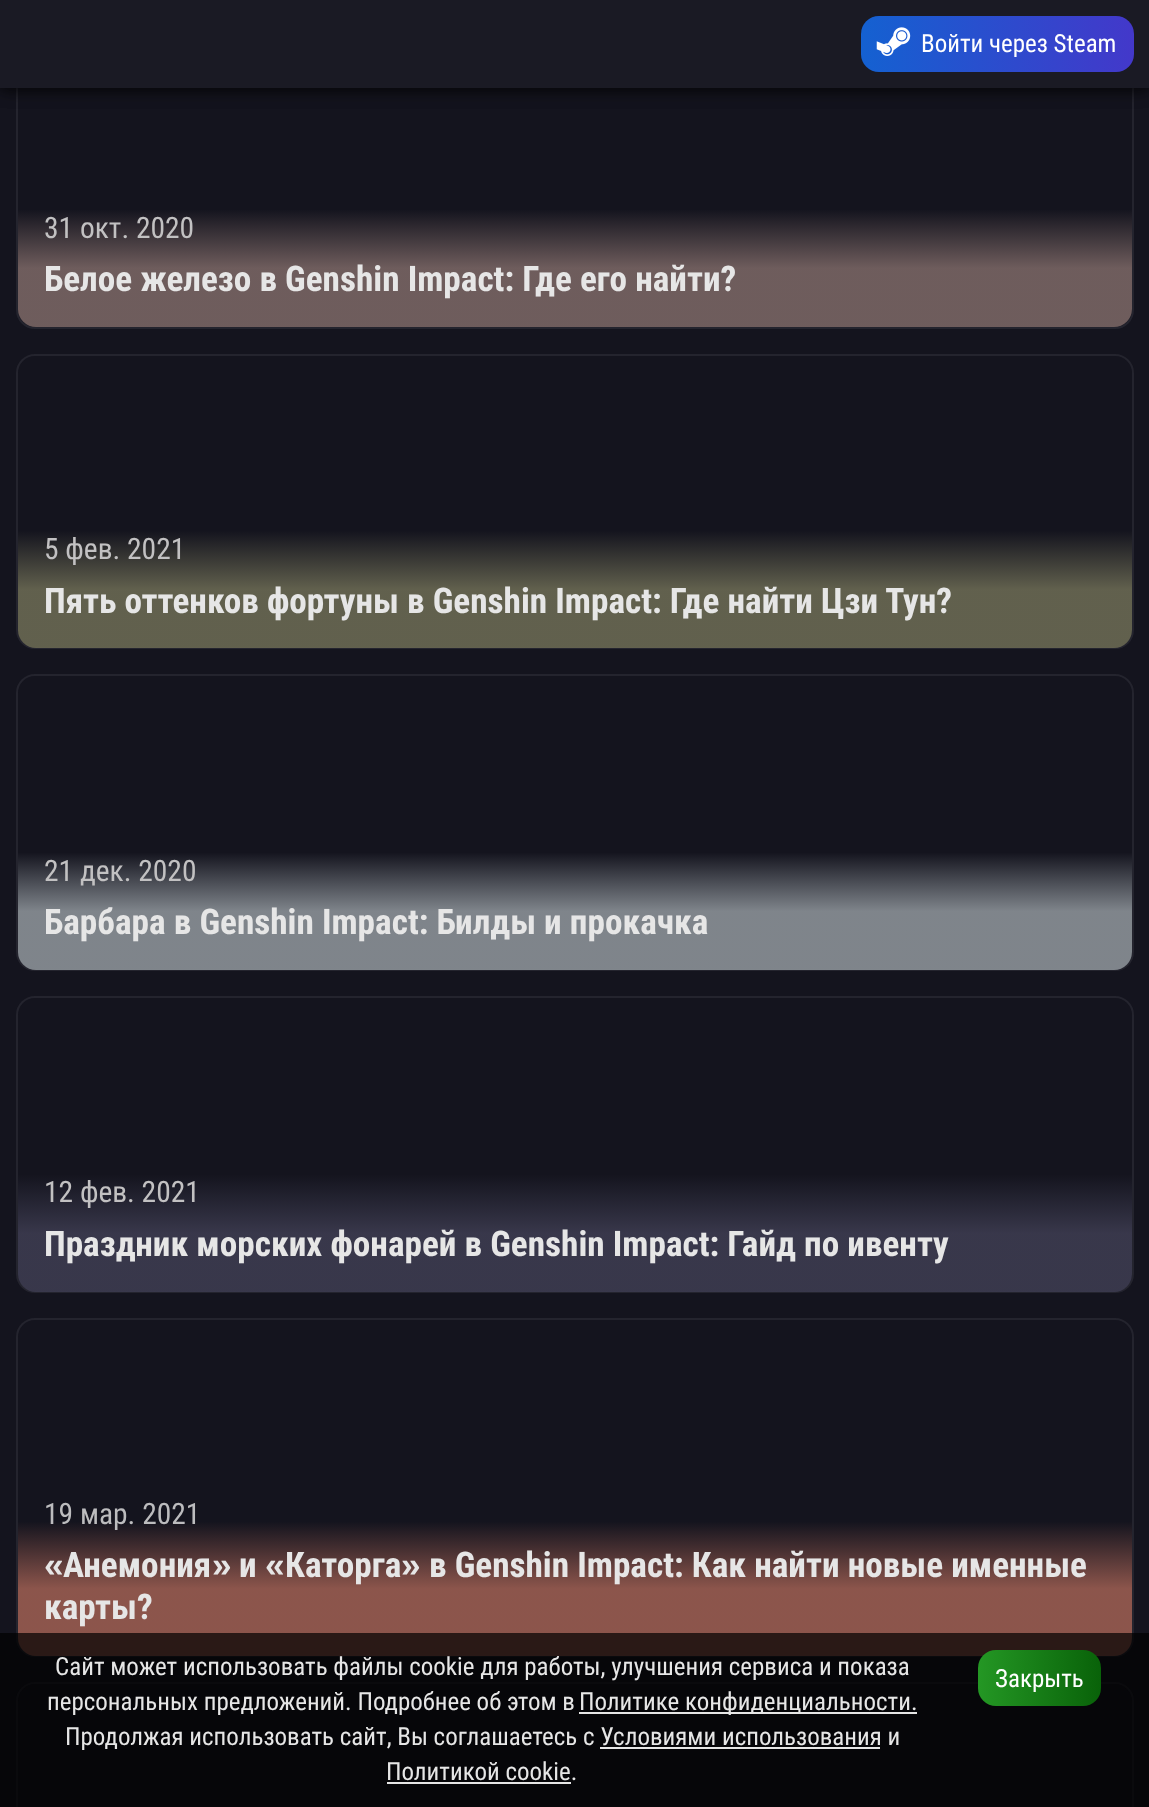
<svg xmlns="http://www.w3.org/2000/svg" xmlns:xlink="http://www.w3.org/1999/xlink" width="1149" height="1807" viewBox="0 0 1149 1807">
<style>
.cls-1{font:25px Roboto Condensed;fill:#ffffff}
.cls-2{font:29.5px Roboto Condensed;fill:#c2c1c2}
.cls-3{font:bold 35.25px Roboto Condensed;fill:#e6e6e6}
.cls-4{font:29.5px Roboto Condensed;fill:#bcbcbe}
.cls-5{font:bold 35.25px Liberation Sans;fill:#e6e6e6}
.cls-6{font:25px Roboto Condensed;fill:#e6e6e6}
</style>
<defs>
<linearGradient id="g1" gradientUnits="userSpaceOnUse" x1="575" y1="327" x2="575" y2="33"><stop offset="0.2" stop-color="#756261" stop-opacity="0.93"/><stop offset="0.4" stop-color="#756261" stop-opacity="0"/></linearGradient>
<linearGradient id="g2" gradientUnits="userSpaceOnUse" x1="861" y1="44" x2="1134" y2="44"><stop offset="0" stop-color="#1461d1"/><stop offset="1" stop-color="#4338ca"/></linearGradient>
<linearGradient id="g3" gradientUnits="userSpaceOnUse" x1="575" y1="648" x2="575" y2="355"><stop offset="0.2" stop-color="#676651" stop-opacity="0.93"/><stop offset="0.4" stop-color="#676651" stop-opacity="0"/></linearGradient>
<linearGradient id="g4" gradientUnits="userSpaceOnUse" x1="575" y1="970" x2="575" y2="676"><stop offset="0.2" stop-color="#878d93" stop-opacity="0.93"/><stop offset="0.4" stop-color="#878d93" stop-opacity="0"/></linearGradient>
<linearGradient id="g5" gradientUnits="userSpaceOnUse" x1="575" y1="1292" x2="575" y2="998"><stop offset="0.2" stop-color="#3b3a4e" stop-opacity="0.93"/><stop offset="0.4" stop-color="#3b3a4e" stop-opacity="0"/></linearGradient>
<linearGradient id="g6" gradientUnits="userSpaceOnUse" x1="575" y1="1656" x2="575" y2="1320"><stop offset="0.2" stop-color="#955a4f" stop-opacity="0.93"/><stop offset="0.4" stop-color="#955a4f" stop-opacity="0"/></linearGradient>
<linearGradient id="g7" gradientUnits="userSpaceOnUse" x1="978" y1="1678" x2="1101" y2="1678"><stop offset="0" stop-color="#249724"/><stop offset="1" stop-color="#096209"/></linearGradient>
</defs>
<rect width="100%" height="100%" fill="#14141e"/>
<rect fill="none" stroke="#24242e" stroke-width="2" x="17" y="33" width="1116" height="295" rx="18"/>
<rect fill="url(#g1)" x="18" y="33" width="1114" height="294" rx="18"/>
<rect fill="#000000" fill-opacity="0.6" filter="blur(9px)" x="0" y="0" width="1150" height="88"/>
<rect fill="#000000" fill-opacity="0.6" filter="blur(9px)" x="0" y="0" width="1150" height="88"/>
<rect fill="#1a1a24" x="0" y="0" width="1149" height="88"/>
<rect fill="url(#g2)" x="861" y="16" width="273" height="56" rx="18"/>
<image xlink:href="image0.png" x="876" y="27" width="35" height="29"/>
<rect fill="none" stroke="#24242e" stroke-width="2" x="17" y="355" width="1116" height="293" rx="18"/>
<rect fill="url(#g3)" x="18" y="355" width="1114" height="293" rx="18"/>
<rect fill="none" stroke="#24242e" stroke-width="2" x="17" y="675" width="1116" height="295" rx="18"/>
<rect fill="url(#g4)" x="18" y="676" width="1114" height="294" rx="18"/>
<rect fill="none" stroke="#24242e" stroke-width="2" x="17" y="997" width="1116" height="295" rx="18"/>
<rect fill="url(#g5)" x="18" y="998" width="1114" height="294" rx="18"/>
<rect fill="none" stroke="#24242e" stroke-width="2" x="17" y="1319" width="1116" height="337" rx="18"/>
<rect fill="url(#g6)" x="18" y="1320" width="1114" height="336" rx="18"/>
<rect fill="none" stroke="#24242e" stroke-width="2" x="17" y="1683" width="1116" height="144" rx="18"/>
<rect fill="#000000" fill-opacity="0.7" x="0" y="1633" width="1149" height="174"/>
<rect fill="#e6e6e6" x="579" y="1712" width="338" height="2"/>
<rect fill="#e6e6e6" x="600" y="1747" width="280" height="2"/>
<rect fill="#e6e6e6" x="387" y="1782" width="184" height="2"/>
<rect fill="url(#g7)" x="978" y="1650" width="123" height="56" rx="18"/>
<text class="cls-1" x="921" y="52">Войти через Steam</text>
<text class="cls-2" x="44" y="238">31 окт. 2020</text>
<text class="cls-3" x="44" y="291">Белое железо в Genshin Impact: Где его найти?</text>
<text class="cls-2" x="44" y="559">5 фев. 2021</text>
<text class="cls-3" x="44" y="613">Пять оттенков фортуны в Genshin Impact: Где найти Цзи Тун?</text>
<text class="cls-2" x="44" y="881">21 дек. 2020</text>
<text class="cls-3" x="44" y="934">Барбара в Genshin Impact: Билды и прокачка</text>
<text class="cls-2" x="44" y="1202">12 фев. 2021</text>
<text class="cls-3" x="44" y="1256">Праздник морских фонарей в Genshin Impact: Гайд по ивенту</text>
<text class="cls-4" x="44" y="1524">19 мар. 2021</text>
<text class="cls-5" x="44" y="1577">«</text>
<text class="cls-3" x="63" y="1577">Анемония</text>
<text class="cls-5" x="212" y="1577">»</text>
<text class="cls-3" x="239" y="1577">и</text>
<text class="cls-5" x="265" y="1577">«</text>
<text class="cls-3" x="285" y="1577">Каторга</text>
<text class="cls-5" x="401" y="1577">»</text>
<text class="cls-3" x="429" y="1577">в Genshin Impact: Как найти новые именные</text>
<text class="cls-3" x="44" y="1619">карты?</text>
<text class="cls-6" x="55" y="1675">Сайт может использовать файлы cookie для работы, улучшения сервиса и показа</text>
<text class="cls-6" x="47" y="1710">персональных предложений. Подробнее об этом в</text>
<text class="cls-6" x="579" y="1710">Политике конфиденциальности.</text>
<text class="cls-6" x="65" y="1745">Продолжая использовать сайт, Вы соглашаетесь с Условиями использования и</text>
<text class="cls-6" x="386" y="1780">Политикой cookie.</text>
<text class="cls-1" x="995" y="1687">Закрыть</text>
</svg>
